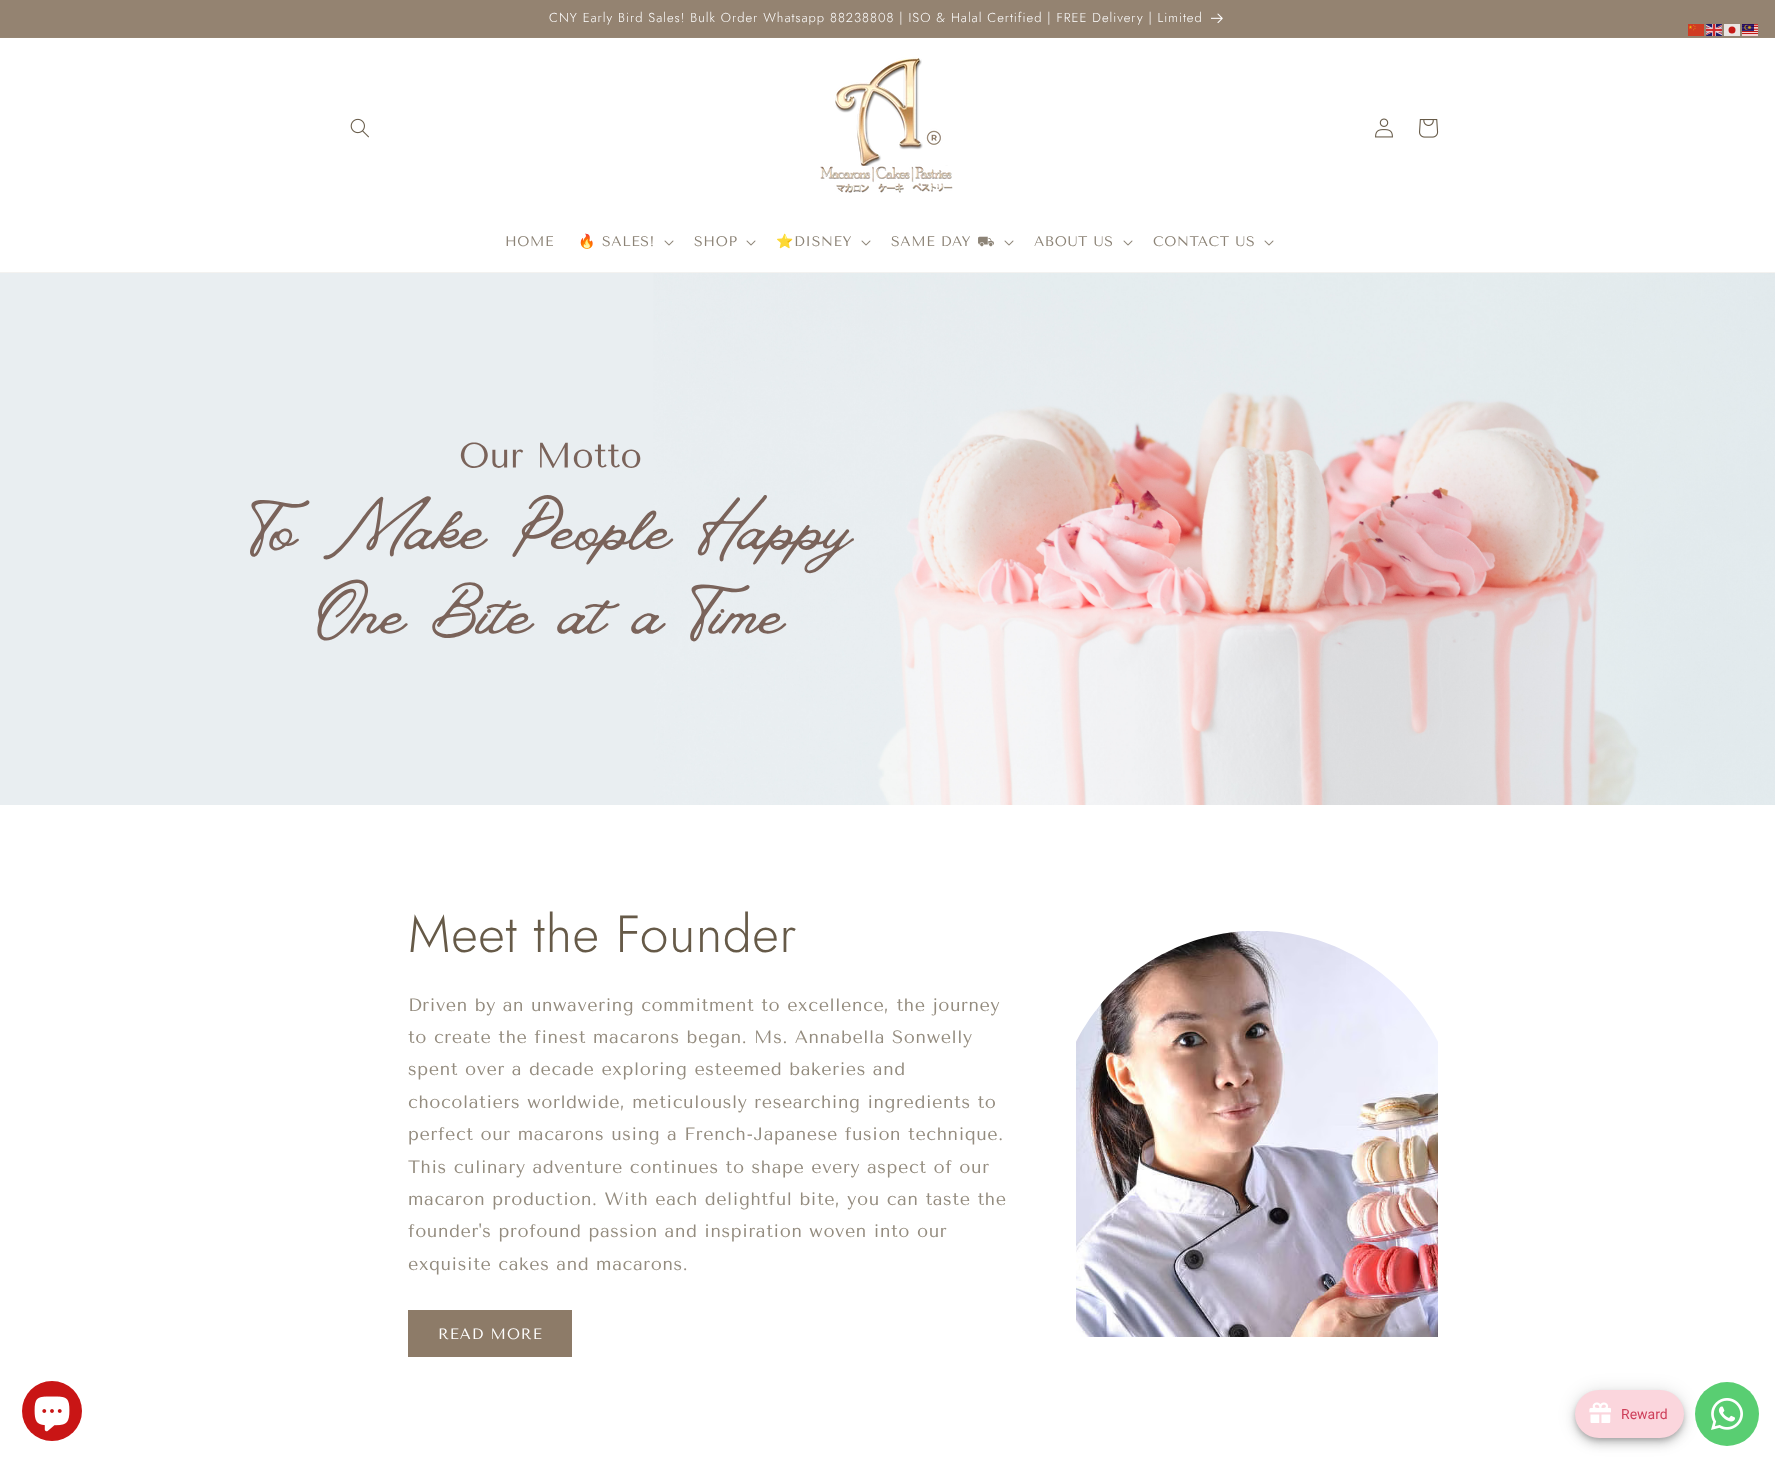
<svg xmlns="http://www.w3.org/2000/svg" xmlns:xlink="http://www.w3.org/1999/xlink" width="1775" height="1462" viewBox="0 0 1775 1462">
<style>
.cls-1{font:300 13px Jost;letter-spacing:1px;fill:#ffffff}
.cls-2{font:14px Tenor Sans;letter-spacing:0.6px;fill:#8c8376}
.cls-3{font:14px Noto Color Emoji;letter-spacing:0.6px;fill:#8c8376}
.cls-4{font:14px STIX Two Math;letter-spacing:0.6px;fill:#8c8376}
.cls-5{font:300 52px Jost;letter-spacing:0.6px;fill:#665a48}
.cls-6{font:18px Tenor Sans;letter-spacing:0.6px;fill:#948c7f}
.cls-7{font:15px Tenor Sans;letter-spacing:1px;fill:#ffffff}
.cls-8{font:14px Roboto;fill:#ce3f5a}
</style>
<rect width="100%" height="100%" fill="#ffffff"/>
<rect fill="#968674" x="0" y="37" width="1775" height="1"/>
<rect fill="#948371" x="0" y="0" width="1775" height="37"/>
<image xlink:href="image0.png" x="1211" y="13" width="12" height="10"/>
<image xlink:href="image1.png" x="1688" y="24" width="16" height="12"/>
<image xlink:href="image2.png" x="1706" y="24" width="16" height="12"/>
<rect fill="#eae6e3" x="1724" y="24" width="16" height="12"/>
<image xlink:href="image3.png" x="1742" y="24" width="16" height="12"/>
<circle fill="#c61a17" cx="1732" cy="30" r="3.5"/>
<rect fill="#f3f2f0" x="0" y="272" width="1775" height="1"/>
<image xlink:href="image4.png" x="350" y="118" width="19" height="20"/>
<image xlink:href="image5.png" x="820" y="57" width="133" height="136"/>
<image xlink:href="image6.png" x="1375" y="118" width="18" height="20"/>
<image xlink:href="image7.png" x="1419" y="119" width="20" height="19"/>
<image xlink:href="image8.png" x="664" y="240" width="10" height="6"/>
<image xlink:href="image8.png" x="746" y="240" width="10" height="6"/>
<image xlink:href="image8.png" x="861" y="240" width="10" height="6"/>
<image xlink:href="image8.png" x="1004" y="240" width="10" height="6"/>
<image xlink:href="image8.png" x="1123" y="240" width="10" height="6"/>
<image xlink:href="image8.png" x="1264" y="240" width="10" height="6"/>
<image xlink:href="image9.png" x="0" y="273" width="1775" height="532"/>
<rect fill="#8d7b68" x="408" y="1310" width="164" height="47"/>
<image xlink:href="image10.png" x="1076" y="931" width="362" height="406"/>
<circle fill="#c91515" cx="52" cy="1411" r="30"/>
<image xlink:href="image11.png" x="34" y="1396" width="36" height="36"/>
<rect fill="#000000" fill-opacity="0.12" filter="blur(9px)" x="1575" y="1391" width="109" height="48" rx="24"/>
<rect fill="#000000" fill-opacity="0.14" filter="blur(5px)" x="1575" y="1396" width="109" height="48" rx="24"/>
<rect fill="#000000" fill-opacity="0.2" filter="blur(2.5px)" x="1576" y="1394" width="107" height="46" rx="23"/>
<rect fill="#fbd6dd" x="1575" y="1390" width="109" height="48" rx="24"/>
<image xlink:href="image12.png" x="1589" y="1402" width="22" height="21"/>
<circle fill="#59ce72" cx="1727" cy="1414" r="32"/>
<image xlink:href="image13.png" x="1711" y="1398" width="32" height="32"/>
<text class="cls-1" x="549" y="22">CNY Early Bird Sales! Bulk Order Whatsapp 88238808 | ISO &amp; Halal Certified | FREE Delivery | Limited</text>
<text class="cls-2" x="505" y="246">HOME</text>
<text class="cls-3" x="578" y="246">🔥</text>
<text class="cls-2" x="602" y="246">SALES!</text>
<text class="cls-2" x="694" y="246">SHOP</text>
<text class="cls-3" x="776" y="246">⭐</text>
<text class="cls-2" x="794" y="246">DISNEY</text>
<text class="cls-2" x="891" y="246">SAME DAY</text>
<text class="cls-4" x="977" y="246">⛟</text>
<text class="cls-2" x="1034" y="246">ABOUT US</text>
<text class="cls-2" x="1153" y="246">CONTACT US</text>
<text class="cls-5" x="408" y="952">Meet the Founder</text>
<text class="cls-6"><tspan x="408" y="1011">Driven by an unwavering commitment to excellence, the journey</tspan><tspan x="408" y="1043">to create the finest macarons began. Ms. Annabella Sonwelly</tspan><tspan x="408" y="1075">spent over a decade exploring esteemed bakeries and</tspan><tspan x="408" y="1108">chocolatiers worldwide, meticulously researching ingredients to</tspan><tspan x="408" y="1140">perfect our macarons using a French-Japanese fusion technique.</tspan><tspan x="408" y="1173">This culinary adventure continues to shape every aspect of our</tspan><tspan x="408" y="1205">macaron production. With each delightful bite, you can taste the</tspan><tspan x="408" y="1237">founder's profound passion and inspiration woven into our</tspan><tspan x="408" y="1270">exquisite cakes and macarons.</tspan></text>
<text class="cls-7" x="438" y="1339">READ MORE</text>
<text class="cls-8" x="1621" y="1419">Reward</text>
</svg>
